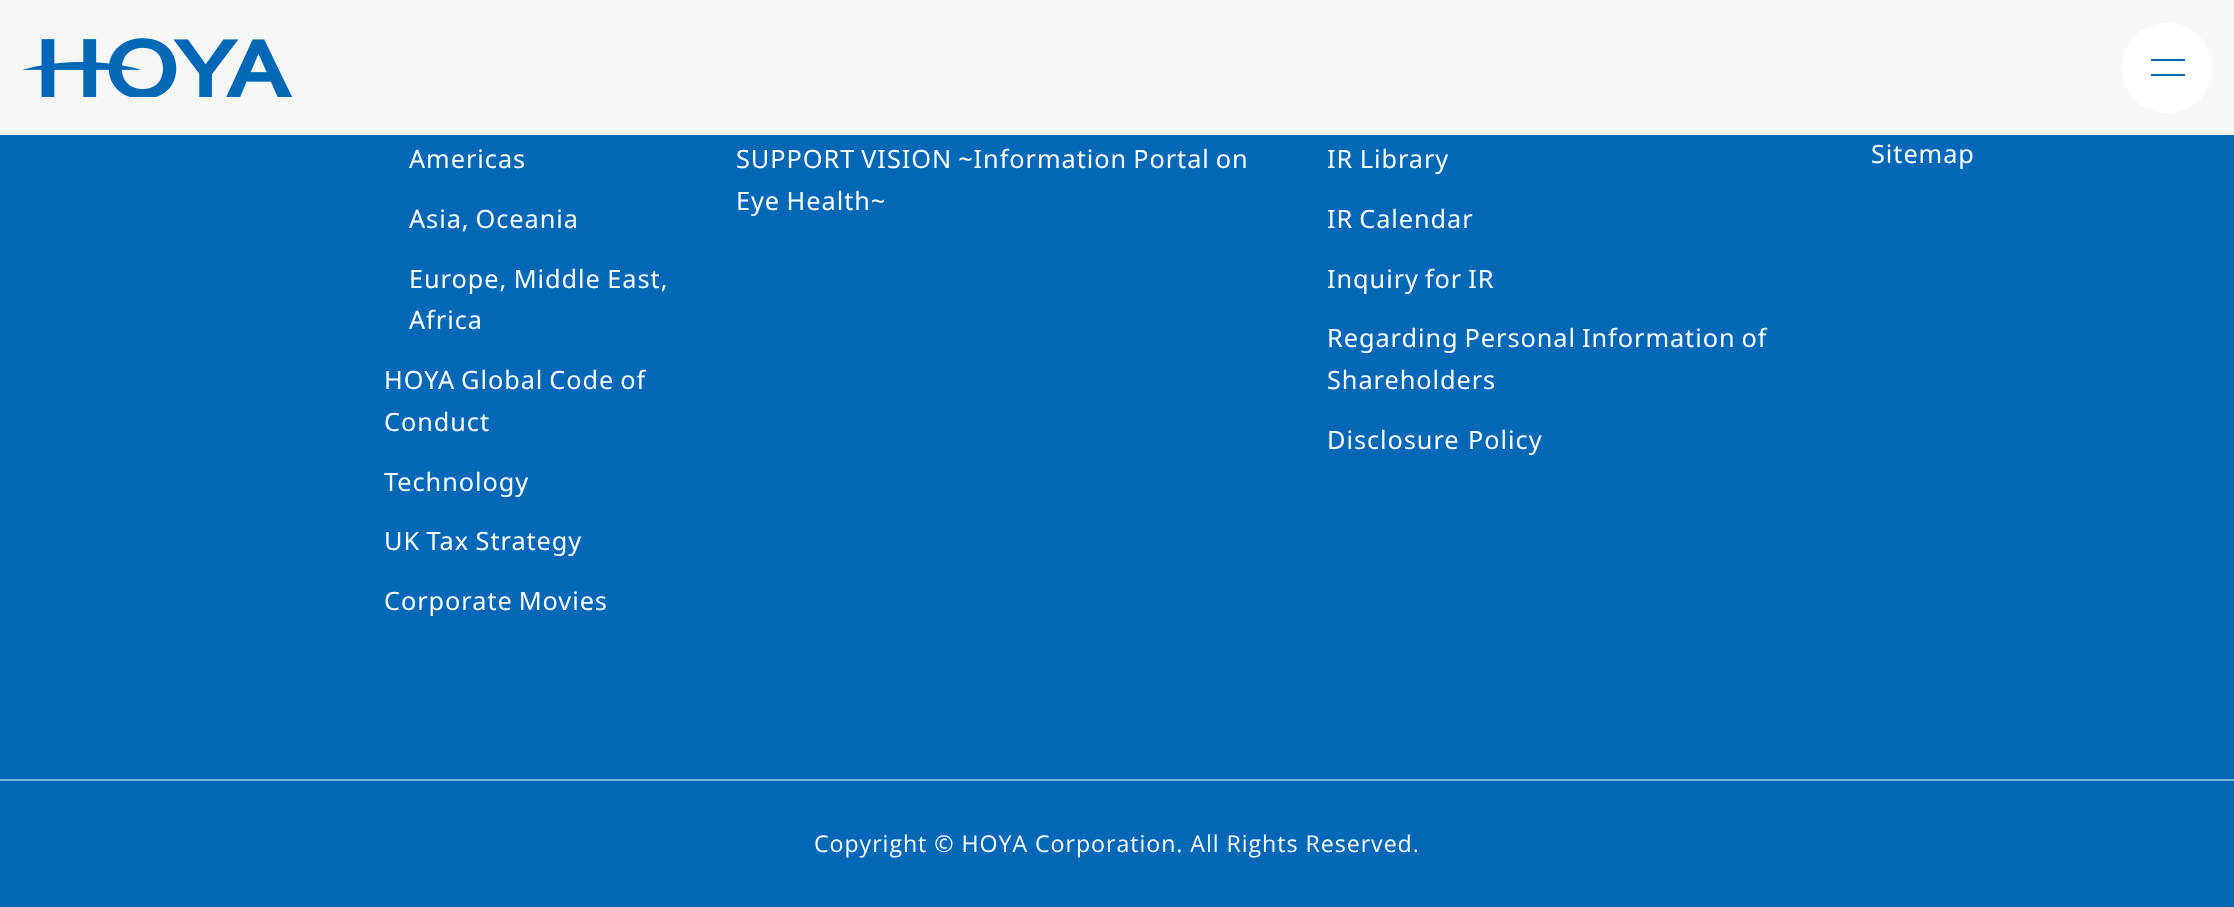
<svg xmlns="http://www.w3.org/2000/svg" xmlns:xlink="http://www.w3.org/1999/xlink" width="2234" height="907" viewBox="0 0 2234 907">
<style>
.cls-1{font:25.3px Noto Sans;letter-spacing:0.95px;fill:#ffffff}
.cls-2{font:23.2px Open Sans;letter-spacing:0.95px;fill:#ffffff}
</style>
<rect width="100%" height="100%" fill="#0068b6"/>
<rect fill="#f7f7f7" x="0" y="0" width="2234" height="135"/>
<image xlink:href="image0.png" x="23" y="38" width="270" height="59"/>
<circle fill="#ffffff" cx="2167" cy="68" r="45"/>
<rect fill="#0068b6" x="2151" y="59" width="34" height="2"/>
<rect fill="#0068b6" x="2151" y="74" width="34" height="2"/>
<rect fill="#80b4db" x="0" y="779" width="2234" height="2"/>
<text class="cls-1" x="409" y="168">Americas</text>
<text class="cls-1" x="409" y="228" word-spacing="-1.5">Asia, Oceania</text>
<text class="cls-1"><tspan x="409" y="288" word-spacing="-1">Europe, Middle East,</tspan><tspan x="409" y="329">Africa</tspan></text>
<text class="cls-1"><tspan x="384" y="389" word-spacing="-1.5">HOYA Global Code of</tspan><tspan x="384" y="431">Conduct</tspan></text>
<text class="cls-1" x="384" y="491">Technology</text>
<text class="cls-1" x="384" y="550" word-spacing="-1">UK Tax Strategy</text>
<text class="cls-1" x="384" y="610" word-spacing="-1.5">Corporate Movies</text>
<text class="cls-1"><tspan x="736" y="168" word-spacing="-1.5">SUPPORT VISION ~Information Portal on</tspan><tspan x="736" y="210" word-spacing="-1">Eye Health~</tspan></text>
<text class="cls-1" x="1327" y="168" word-spacing="-1">IR Library</text>
<text class="cls-1" x="1327" y="228" word-spacing="-1.5">IR Calendar</text>
<text class="cls-1" x="1327" y="288" word-spacing="-1.5">Inquiry for IR</text>
<text class="cls-1"><tspan x="1327" y="347" word-spacing="-1.5">Regarding Personal Information of</tspan><tspan x="1327" y="389">Shareholders</tspan></text>
<text class="cls-1" x="1327" y="449" word-spacing="1">Disclosure Policy</text>
<text class="cls-1" x="1871" y="163">Sitemap</text>
<text class="cls-2" x="814" y="852">Copyright © HOYA Corporation. All Rights Reserved.</text>
</svg>
